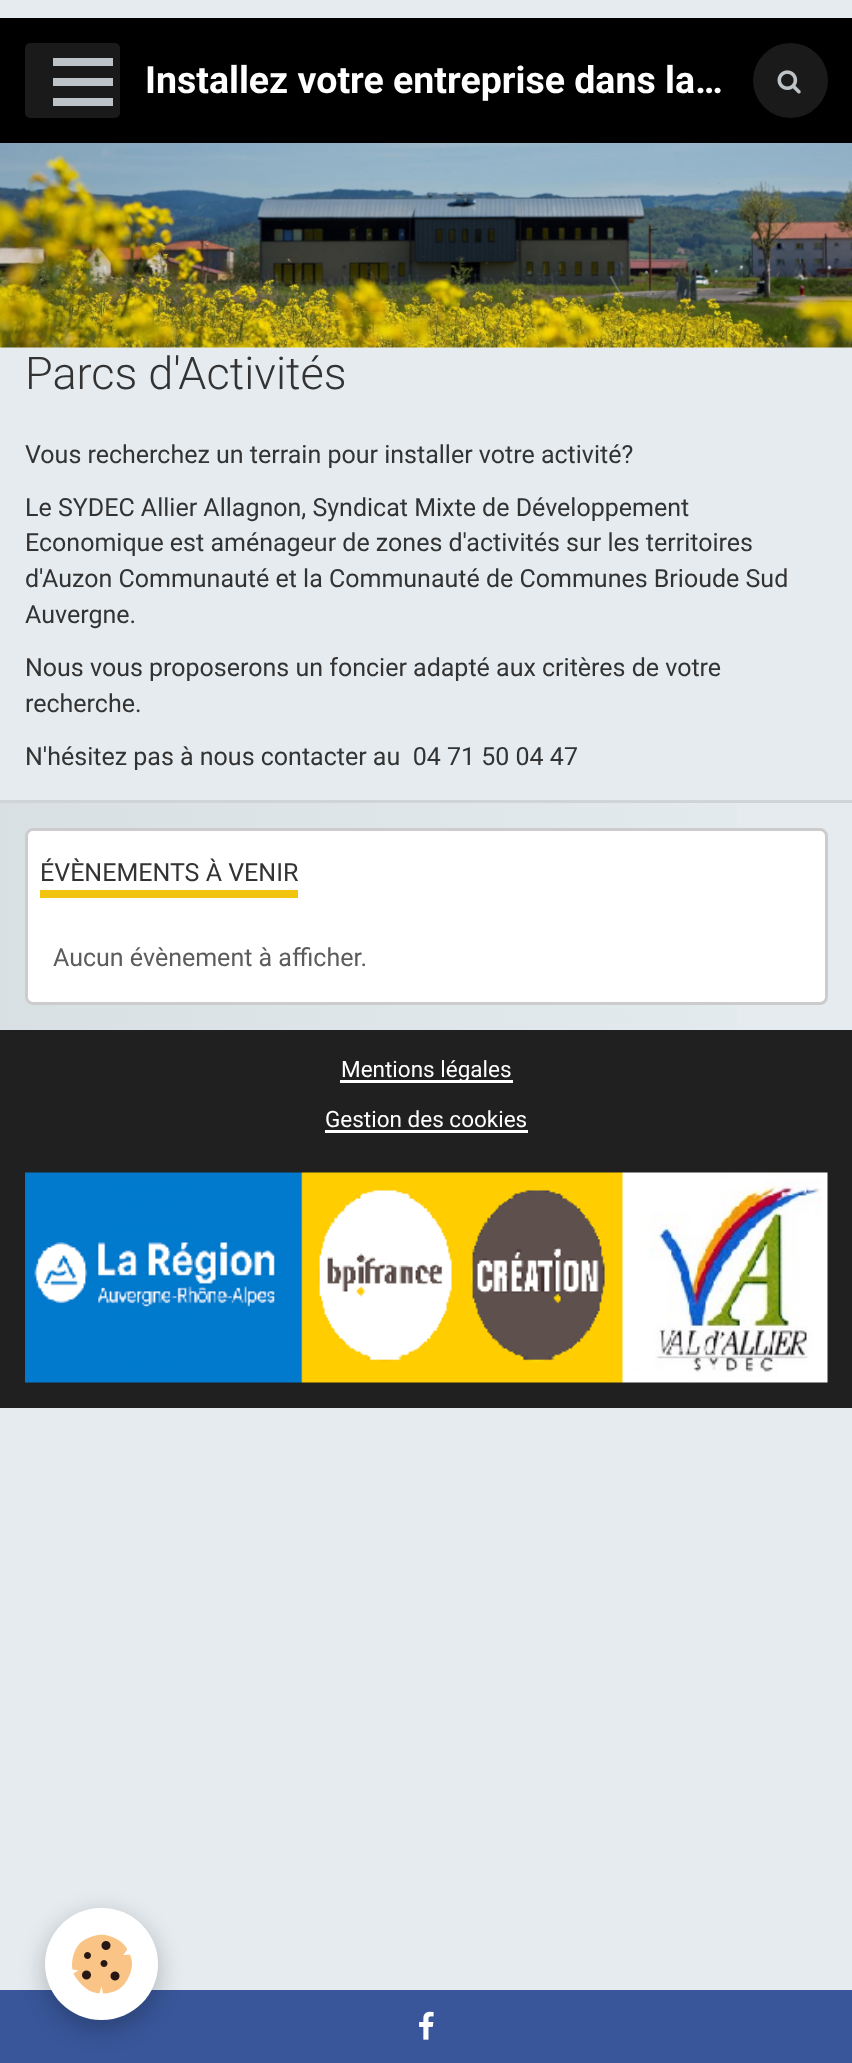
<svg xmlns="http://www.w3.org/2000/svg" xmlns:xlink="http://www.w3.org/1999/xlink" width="852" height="2063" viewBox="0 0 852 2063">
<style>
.cls-1{font:bold 37.5px Roboto;fill:#ffffff}
.cls-2{font:300 45px Roboto;fill:#333333}
.cls-3{font:25px Roboto;fill:#333333}
.cls-4{font:25px Roboto;fill:#5c5c5c}
.cls-5{font:22.5px Roboto;fill:#ffffff}
</style>
<defs>
<linearGradient id="g1" gradientUnits="userSpaceOnUse" x1="0" y1="916" x2="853" y2="916"><stop offset="0" stop-color="#d9e0e4"/><stop offset="1" stop-color="#e4ecf0"/></linearGradient>
</defs>
<rect width="100%" height="100%" fill="#e5ebef"/>
<rect fill="#000000" x="0" y="18" width="852" height="125"/>
<rect fill="#1a1a1a" x="25" y="43" width="95" height="75" rx="5"/>
<rect fill="#bdc3c7" x="53" y="78" width="60" height="8"/>
<rect fill="#bdc3c7" x="53" y="58" width="60" height="8"/>
<rect fill="#bdc3c7" x="53" y="98" width="60" height="8"/>
<circle fill="#1a1a1a" cx="790.5" cy="80.5" r="37.5"/>
<image xlink:href="image0.png" x="777" y="70" width="24" height="24"/>
<image xlink:href="image1.png" x="0" y="143" width="852" height="205"/>
<rect fill="#ced4d7" x="0" y="800" width="852" height="3"/>
<rect fill="url(#g1)" x="0" y="803" width="737" height="227"/>
<rect fill="#ffffff" x="25" y="828" width="803" height="177" rx="8"/>
<rect fill="none" stroke="#000000" stroke-opacity="0.2" stroke-width="3" x="26.5" y="829.5" width="800" height="174" rx="6.5"/>
<rect fill="#f1c40f" x="40" y="890" width="258" height="8"/>
<rect fill="#202020" x="0" y="1030" width="852" height="378"/>
<rect fill="#ffffff" x="340" y="1080" width="173" height="3"/>
<rect fill="#ffffff" x="325" y="1130" width="203" height="3"/>
<image xlink:href="image2.png" x="25" y="1172" width="803" height="211"/>
<rect fill="#385699" x="0" y="1990" width="852" height="73"/>
<rect fill="#000000" fill-opacity="0.24" filter="blur(12.5px)" x="45" y="1915" width="113" height="113" rx="56.5"/>
<rect fill="#ffffff" x="45" y="1908" width="113" height="112" rx="56"/>
<image xlink:href="image3.png" x="72" y="1934" width="60" height="60"/>
<image xlink:href="image4.png" x="419" y="2011" width="15" height="29"/>
<text class="cls-1" x="145" y="93">Installez votre entreprise dans la…</text>
<text class="cls-2" x="25" y="389">Parcs d'Activités</text>
<text class="cls-3" x="25" y="463">Vous recherchez un terrain pour installer votre activité?</text>
<text class="cls-3"><tspan x="25" y="516">Le SYDEC Allier Allagnon, Syndicat Mixte de Développement</tspan><tspan x="25" y="551">Economique est aménageur de zones d'activités sur les territoires</tspan><tspan x="25" y="587">d'Auzon Communauté et la Communauté de Communes Brioude Sud</tspan><tspan x="25" y="623">Auvergne.</tspan></text>
<text class="cls-3"><tspan x="25" y="676">Nous vous proposerons un foncier adapté aux critères de votre</tspan><tspan x="25" y="712">recherche.</tspan></text>
<text class="cls-3" xml:space="preserve" x="25" y="765">N'hésitez pas à nous contacter au  04 71 50 04 47</text>
<text class="cls-3" x="40" y="881">ÉVÈNEMENTS À VENIR</text>
<text class="cls-4" x="53" y="966">Aucun évènement à afficher.</text>
<text class="cls-5" x="341" y="1077">Mentions légales</text>
<text class="cls-5" x="325" y="1127">Gestion des cookies</text>
</svg>
